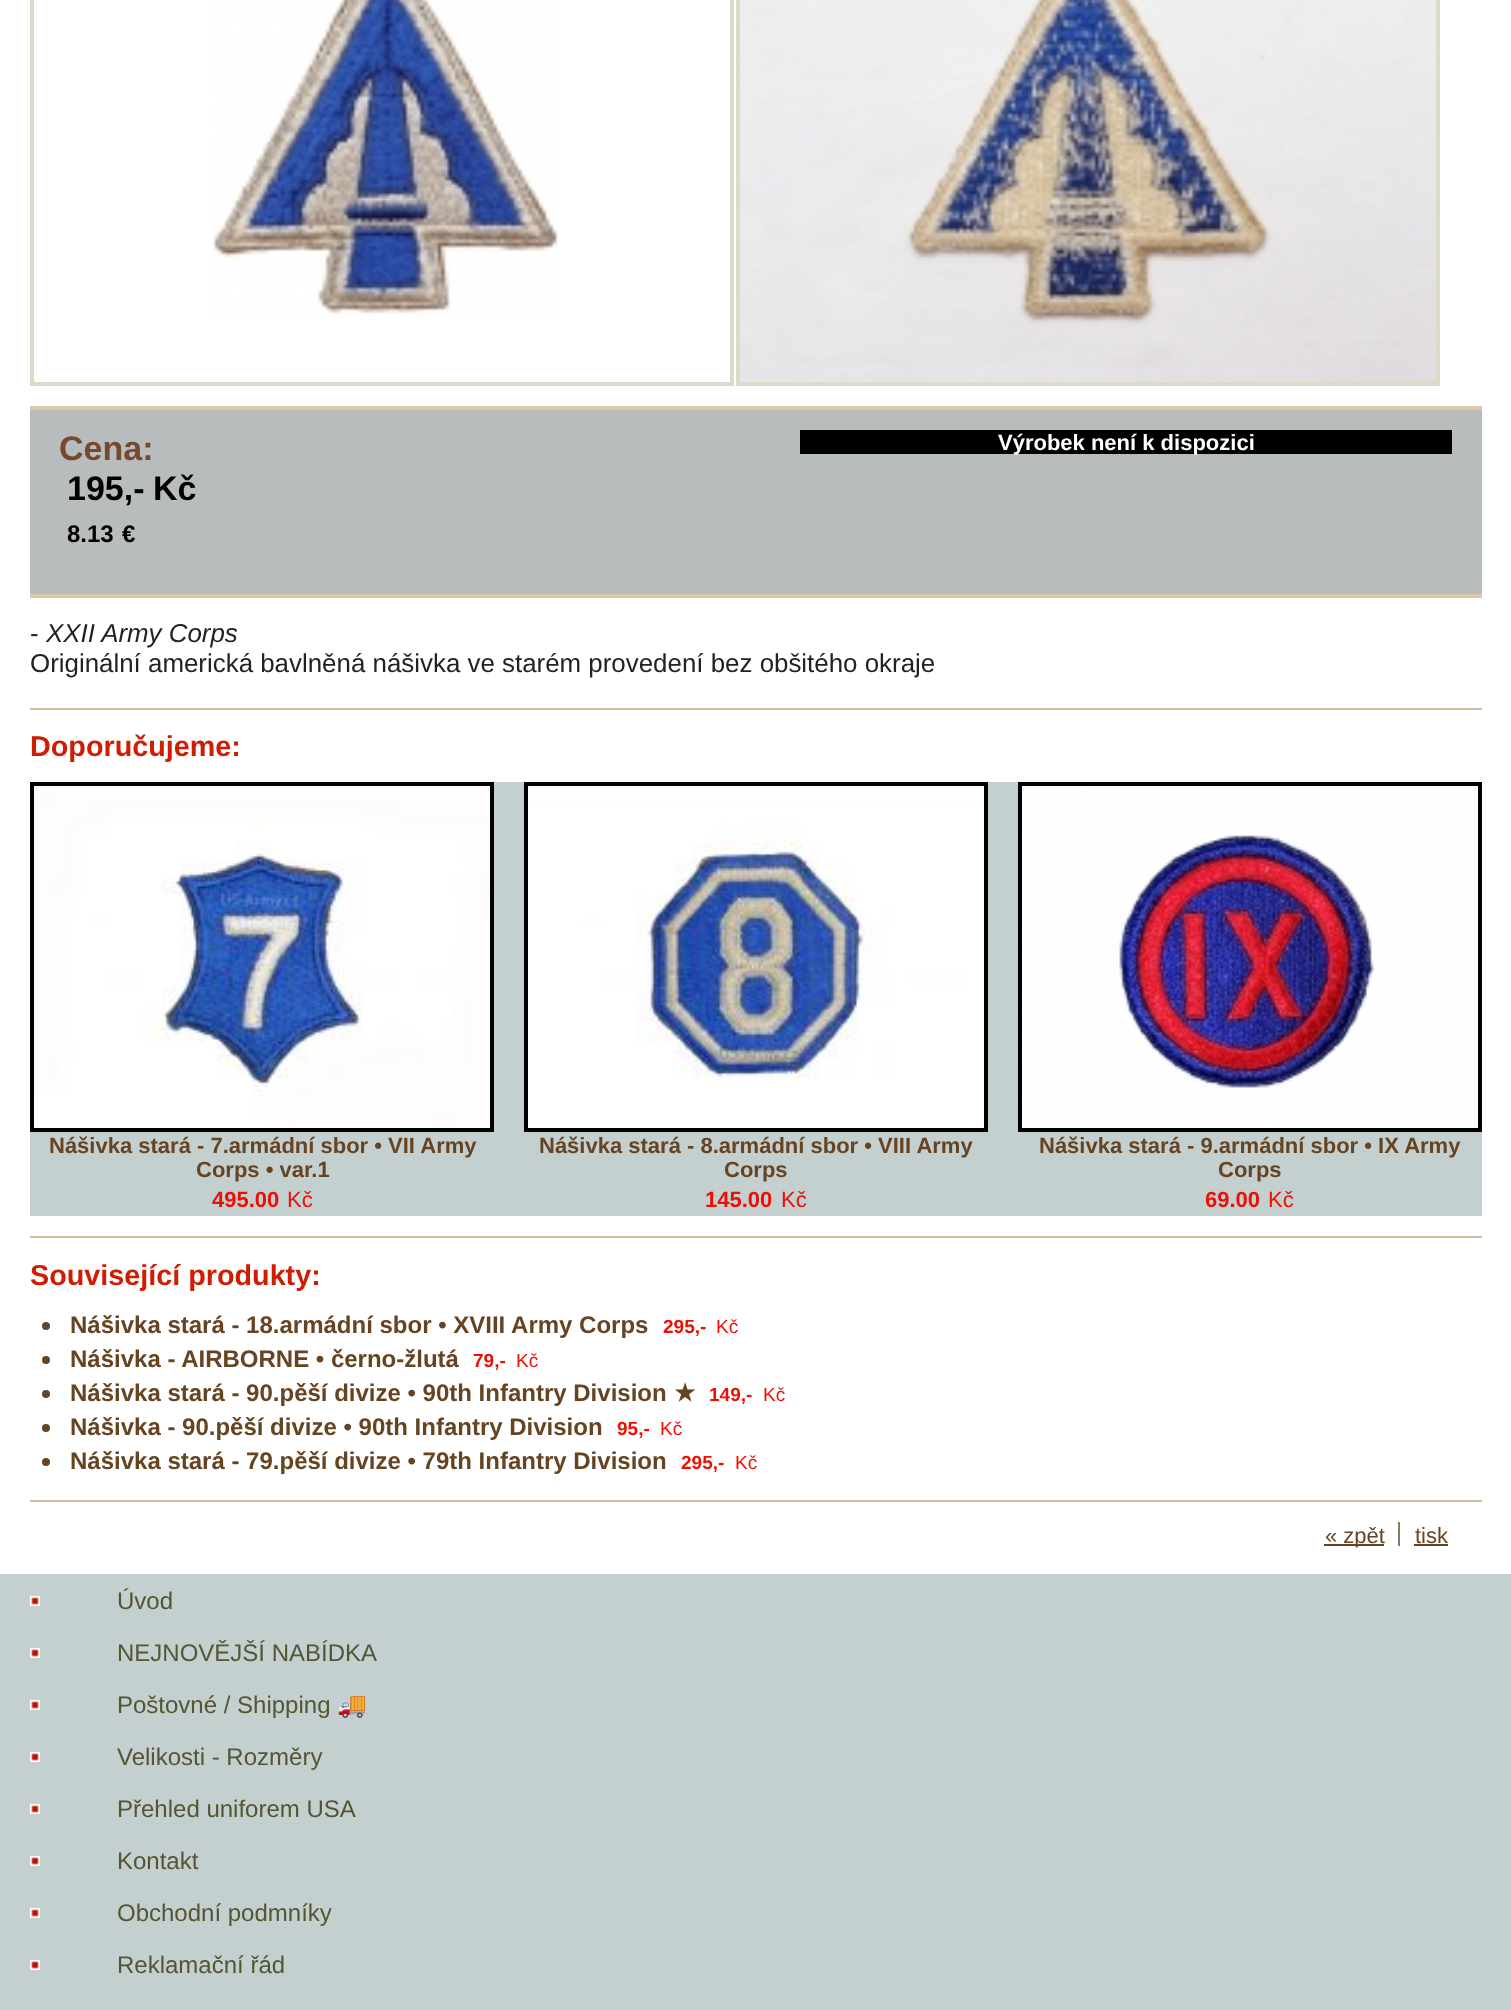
<svg xmlns="http://www.w3.org/2000/svg" xmlns:xlink="http://www.w3.org/1999/xlink" width="1511" height="2010" viewBox="0 0 1511 2010">
<style>
.cls-1{font:bold 34px Liberation Sans;fill:#764830}
.cls-2{font:bold 34px Liberation Sans;fill:#000000}
.cls-3{font:bold 24px Liberation Sans;fill:#000000}
.cls-4{font:bold 22px Liberation Sans;fill:#ffffff}
.cls-5{font:25.9px Liberation Sans;fill:#222222}
.cls-6{font:italic 25.9px Liberation Sans;fill:#222222}
.cls-7{font:bold 28.75px Liberation Sans;fill:#d01c02}
.cls-8{font:bold 22px Liberation Sans;fill:#664422}
.cls-9{font:bold 22px Liberation Sans;fill:#ee0f04}
.cls-10{font:22px Liberation Sans;fill:#ee0f04}
.cls-11{font:bold 24px Liberation Sans;fill:#664422}
.cls-12{font:bold 19px Liberation Sans;fill:#ee0f04}
.cls-13{font:19px Liberation Sans;fill:#ee0f04}
.cls-14{font:bold 24px DejaVu Sans;fill:#664422}
.cls-15{font:22px Liberation Sans;fill:#664422}
.cls-16{font:24px Liberation Sans;fill:#555533}
.cls-17{font:24px Noto Color Emoji;fill:#555533}
</style>
<rect width="100%" height="100%" fill="#ffffff"/>
<rect fill="#d1bd9d" x="30" y="1500" width="1452" height="2"/>
<rect fill="none" stroke="#dcdac9" stroke-width="4" x="32" y="-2" width="700" height="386"/>
<image xlink:href="image0.png" x="213" y="0" width="346" height="317"/>
<rect fill="none" stroke="#dcdac9" stroke-width="4" x="738" y="-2" width="700" height="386"/>
<image xlink:href="image1.png" x="740" y="0" width="696" height="382"/>
<rect fill="#b9bcbc" x="30" y="410" width="1452" height="184"/>
<rect fill="#dcc7a7" x="30" y="406" width="1452" height="4"/>
<rect fill="#dcc7a7" x="30" y="594" width="1452" height="4"/>
<rect fill="#000000" x="800" y="430" width="652" height="24"/>
<rect fill="#d1bd9d" x="30" y="708" width="1452" height="2"/>
<rect fill="#c3d0cf" x="30" y="782" width="1452" height="434"/>
<rect fill="none" stroke="#000000" stroke-width="4" x="32" y="784" width="460" height="346"/>
<image xlink:href="image2.png" x="34" y="786" width="456" height="342"/>
<rect fill="none" stroke="#000000" stroke-width="4" x="526" y="784" width="460" height="346"/>
<image xlink:href="image3.png" x="528" y="786" width="456" height="342"/>
<rect fill="none" stroke="#000000" stroke-width="4" x="1020" y="784" width="460" height="346"/>
<image xlink:href="image4.png" x="1022" y="786" width="456" height="342"/>
<rect fill="#d1bd9d" x="30" y="1236" width="1452" height="2"/>
<circle fill="#664422" cx="46" cy="1326" r="4"/>
<circle fill="#664422" cx="46" cy="1360" r="4"/>
<circle fill="#664422" cx="46" cy="1394" r="4"/>
<circle fill="#664422" cx="46" cy="1428" r="4"/>
<circle fill="#664422" cx="46" cy="1462" r="4"/>
<rect fill="#664422" x="1324" y="1544" width="60" height="2"/>
<rect fill="#7f7f66" x="1398" y="1522" width="2" height="24"/>
<rect fill="#664422" x="1414" y="1544" width="34" height="2"/>
<rect fill="#c3d0cf" x="0" y="1574" width="1511" height="436"/>
<image xlink:href="image5.png" x="30" y="1596" width="10" height="10"/>
<image xlink:href="image5.png" x="30" y="1648" width="10" height="10"/>
<image xlink:href="image5.png" x="30" y="1700" width="10" height="10"/>
<image xlink:href="image5.png" x="30" y="1752" width="10" height="10"/>
<image xlink:href="image5.png" x="30" y="1804" width="10" height="10"/>
<image xlink:href="image5.png" x="30" y="1856" width="10" height="10"/>
<image xlink:href="image5.png" x="30" y="1908" width="10" height="10"/>
<image xlink:href="image5.png" x="30" y="1960" width="10" height="10"/>
<text class="cls-1" x="59" y="460">Cena:</text>
<text class="cls-2" x="67" y="500">195,-</text>
<text class="cls-2" x="153" y="500">Kč</text>
<text class="cls-3" x="67" y="542">8.13</text>
<text class="cls-3" x="122" y="542">€</text>
<text class="cls-4" x="998" y="450">Výrobek není k dispozici</text>
<text class="cls-5" x="30" y="642">-</text>
<text class="cls-6" x="46" y="642">XXII Army Corps</text>
<text class="cls-5" x="30" y="672">Originální americká bavlněná nášivka ve starém provedení bez obšitého okraje</text>
<text class="cls-7" x="30" y="756">Doporučujeme:</text>
<text class="cls-8" x="49" y="1153">Nášivka stará - 7.armádní sbor • VII Army</text>
<text class="cls-8" x="196" y="1177">Corps • var.1</text>
<text class="cls-9" x="212" y="1207">495.00</text>
<text class="cls-10" x="287" y="1207">Kč</text>
<text class="cls-8" x="539" y="1153">Nášivka stará - 8.armádní sbor • VIII Army</text>
<text class="cls-8" x="724" y="1177">Corps</text>
<text class="cls-9" x="705" y="1207">145.00</text>
<text class="cls-10" x="781" y="1207">Kč</text>
<text class="cls-8" x="1039" y="1153">Nášivka stará - 9.armádní sbor • IX Army</text>
<text class="cls-8" x="1218" y="1177">Corps</text>
<text class="cls-9" x="1205" y="1207">69.00</text>
<text class="cls-10" x="1268" y="1207">Kč</text>
<text class="cls-7" x="30" y="1285">Související produkty:</text>
<text class="cls-11" x="70" y="1333">Nášivka stará - 18.armádní sbor • XVIII Army Corps</text>
<text class="cls-12" x="663" y="1333">295,-</text>
<text class="cls-13" x="716" y="1333">Kč</text>
<text class="cls-11" x="70" y="1367">Nášivka - AIRBORNE • černo-žlutá</text>
<text class="cls-12" x="473" y="1367">79,-</text>
<text class="cls-13" x="516" y="1367">Kč</text>
<text class="cls-11" x="70" y="1401">Nášivka stará - 90.pěší divize • 90th Infantry Division</text>
<text class="cls-14" x="674" y="1401">★</text>
<text class="cls-12" x="709" y="1401">149,-</text>
<text class="cls-13" x="763" y="1401">Kč</text>
<text class="cls-11" x="70" y="1435">Nášivka - 90.pěší divize • 90th Infantry Division</text>
<text class="cls-12" x="617" y="1435">95,-</text>
<text class="cls-13" x="660" y="1435">Kč</text>
<text class="cls-11" x="70" y="1469">Nášivka stará - 79.pěší divize • 79th Infantry Division</text>
<text class="cls-12" x="681" y="1469">295,-</text>
<text class="cls-13" x="735" y="1469">Kč</text>
<text class="cls-15" x="1325" y="1543">« zpět</text>
<text class="cls-15" x="1415" y="1543">tisk</text>
<text class="cls-16" x="117" y="1609">Úvod</text>
<text class="cls-16" x="117" y="1661">NEJNOVĚJŠÍ NABÍDKA</text>
<text class="cls-16" x="117" y="1713">Poštovné / Shipping</text>
<text class="cls-17" x="337" y="1713">🚚</text>
<text class="cls-16" x="117" y="1765">Velikosti - Rozměry</text>
<text class="cls-16" x="117" y="1817">Přehled uniforem USA</text>
<text class="cls-16" x="117" y="1869">Kontakt</text>
<text class="cls-16" x="117" y="1921">Obchodní podmníky</text>
<text class="cls-16" x="117" y="1973">Reklamační řád</text>
</svg>
